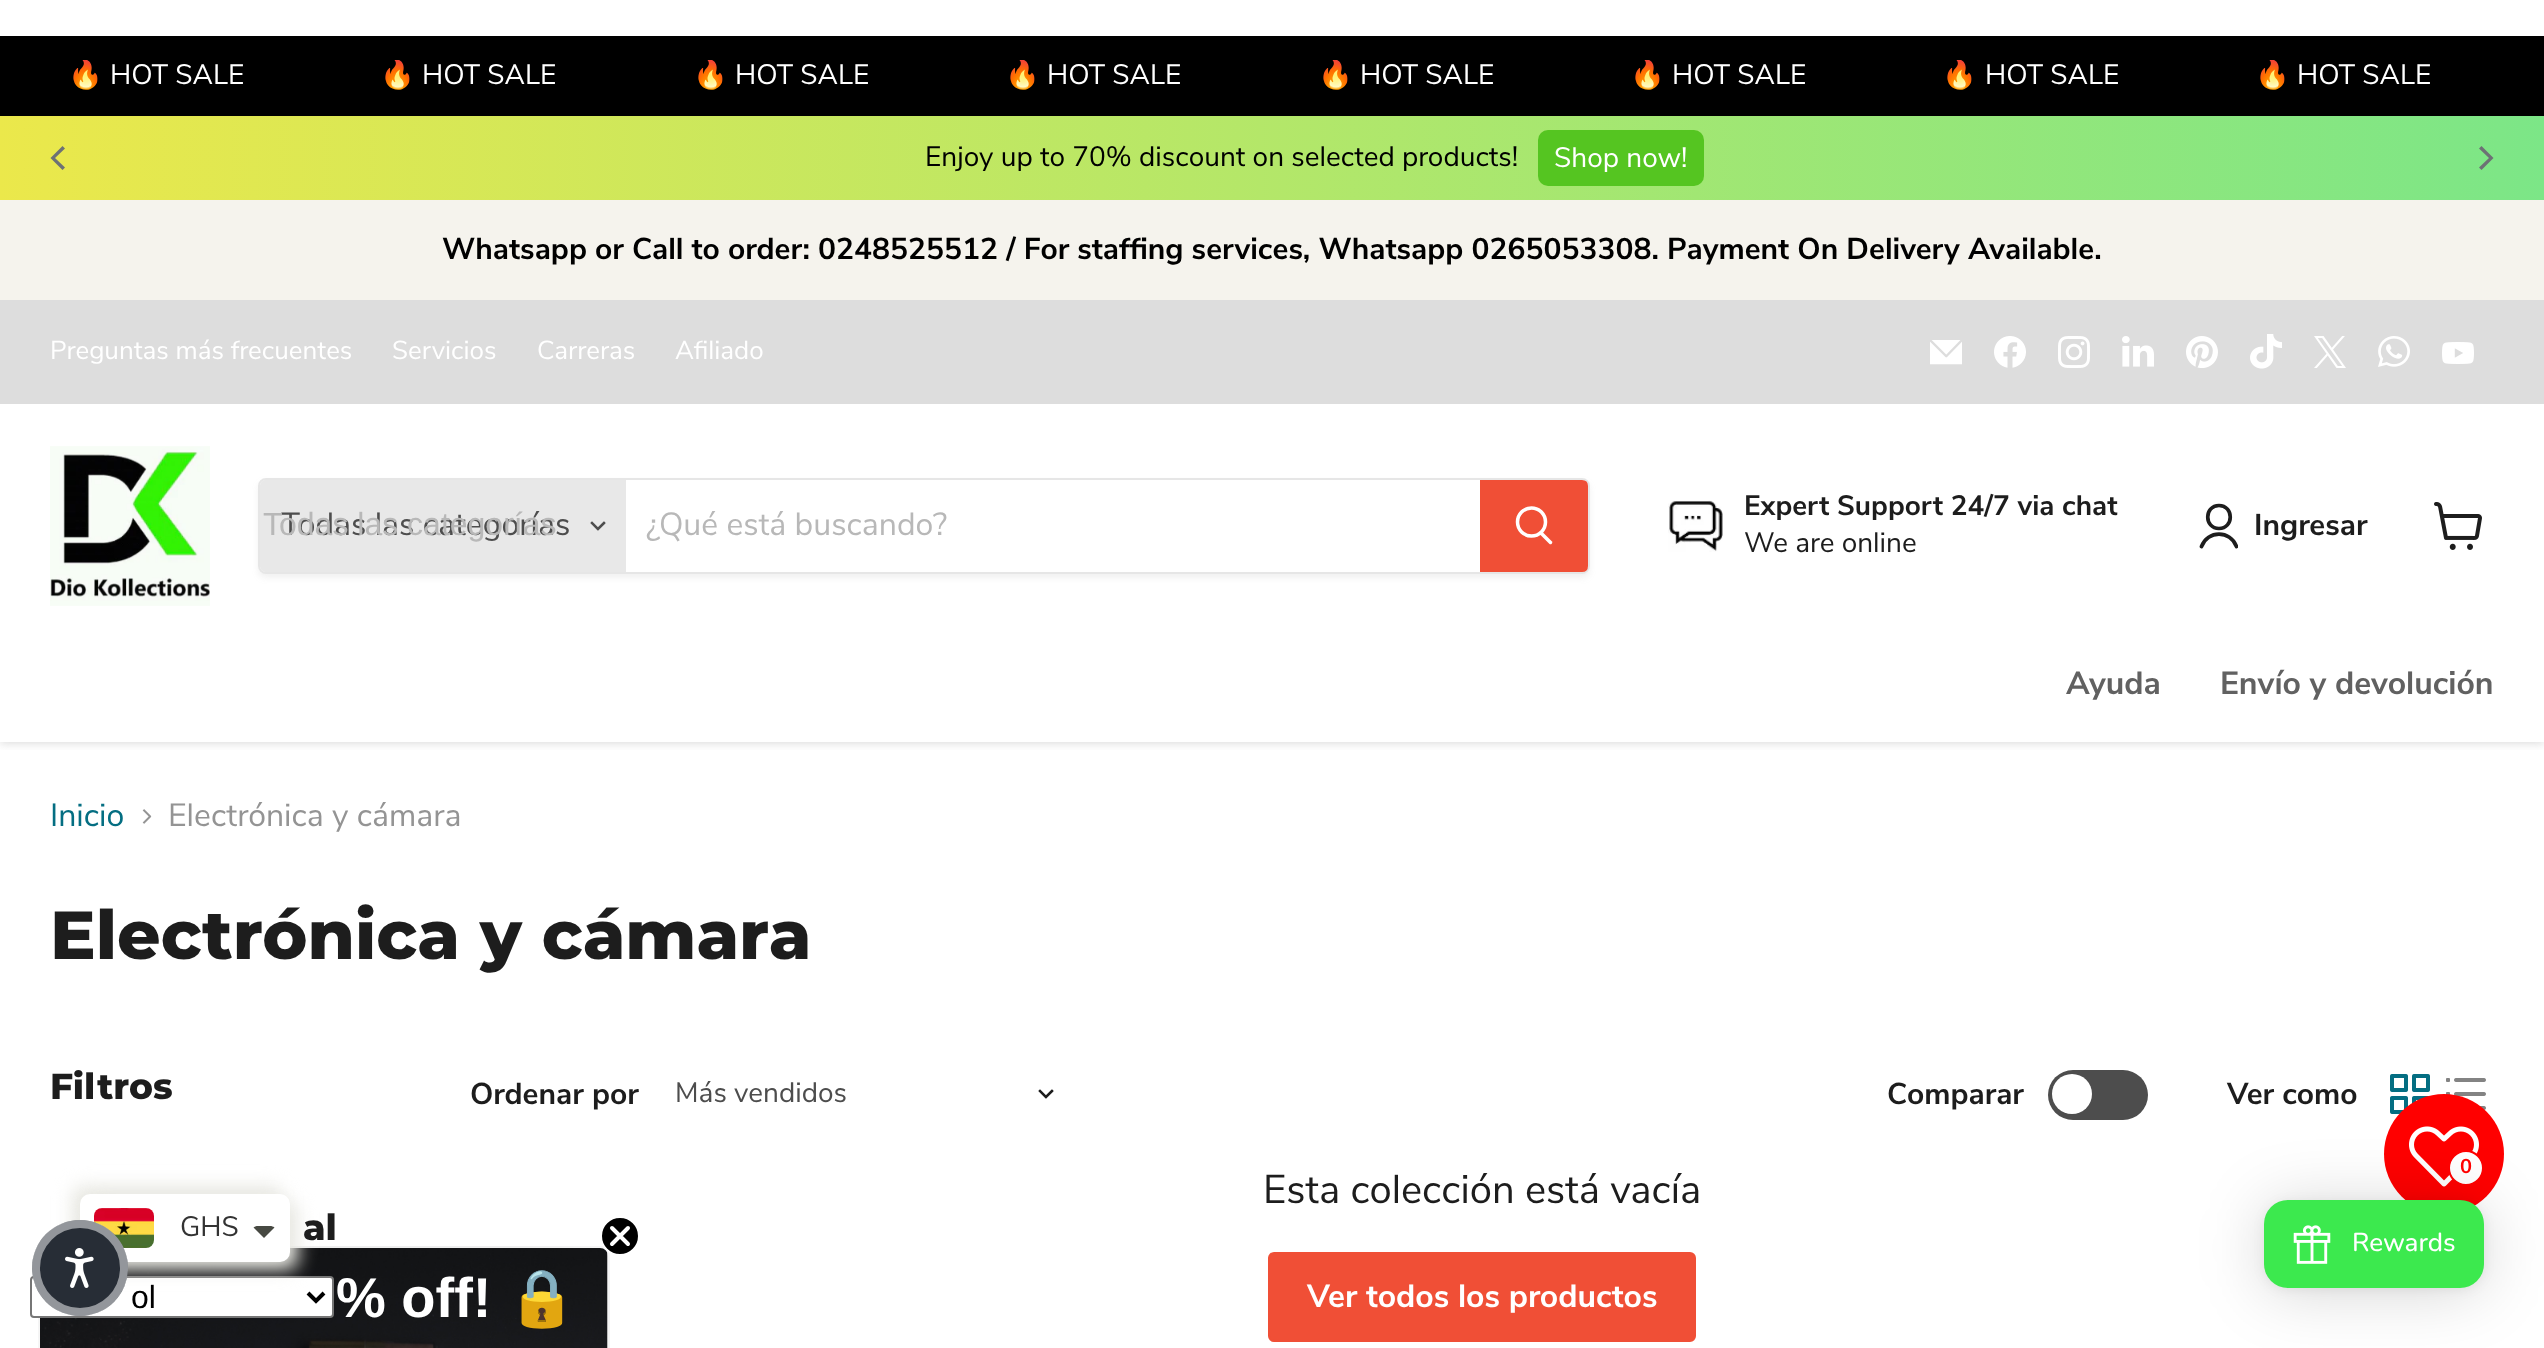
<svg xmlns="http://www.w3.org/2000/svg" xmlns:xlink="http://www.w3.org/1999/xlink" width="2544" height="1348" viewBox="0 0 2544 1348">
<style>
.cls-1{font:28px Noto Color Emoji;fill:#ffffff}
.cls-2{font:28px Nunito Sans;fill:#ffffff}
.cls-3{font:28px Nunito Sans;fill:#000000}
.cls-4{font:bold 30px Nunito Sans;fill:#000000}
.cls-5{font:26px Nunito Sans;fill:#ffffff}
.cls-6{font:32px Nunito Sans;fill:#4d4d4d}
.cls-7{font:32px Liberation Sans;fill:#b8b8b8}
.cls-8{font:32px Nunito Sans;fill:#b8b8b8}
.cls-9{font:bold 28px Nunito Sans;fill:#1d1d1d}
.cls-10{font:28px Nunito Sans;fill:#1d1d1d}
.cls-11{font:bold 30px Nunito Sans;fill:#1d1d1d}
.cls-12{font:bold 32px Nunito Sans;fill:#616161}
.cls-13{font:32px Nunito Sans;fill:#046e82}
.cls-14{font:32px Nunito Sans;fill:#949494}
.cls-15{font:800 68px Montserrat;fill:#1d1d1d}
.cls-16{font:800 36px Montserrat;fill:#1d1d1d}
.cls-17{font:28px Nunito Sans;fill:#4d4d4d}
.cls-18{font:40px Nunito Sans;fill:#1d1d1d}
.cls-19{font:bold 32px Nunito Sans;fill:#ffffff}
.cls-20{font:bold 20px Nunito Sans;fill:#ff0000}
.cls-21{font:28px Nunito Sans;fill:#333333}
.cls-22{font:500 26px Nunito;fill:#ffffff}
.cls-23{font:32px Liberation Sans;fill:#000000}
.cls-24{font:bold 56px Liberation Sans;fill:#ffffff}
.cls-25{font:bold 56px Noto Color Emoji;fill:#000000}
</style>
<defs>
<linearGradient id="g1" gradientUnits="userSpaceOnUse" x1="0" y1="158" x2="2544" y2="158"><stop offset="0" stop-color="#ebe84b"/><stop offset="1" stop-color="#7ce687"/></linearGradient>
<clipPath id="clip1"><rect x="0" y="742" width="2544" height="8"/></clipPath>
<clipPath id="clip2"><path d="M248 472H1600V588H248ZM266 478H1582C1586.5 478 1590 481.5 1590 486V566C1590 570.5 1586.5 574 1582 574H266C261.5 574 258 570.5 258 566V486C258 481.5 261.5 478 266 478Z" clip-rule="evenodd"/></clipPath>
<clipPath id="clip3"><rect x="2198" y="502" width="40" height="48"/></clipPath>
<clipPath id="clip4"><rect x="20" y="60" width="2504" height="34"/></clipPath>
</defs>
<rect width="100%" height="100%" fill="#ffffff"/>
<rect fill="#000000" x="0" y="36" width="2544" height="80"/>
<rect fill="url(#g1)" x="0" y="116" width="2544" height="84"/>
<path fill="#6d7175" d="M50.5 158L62.5 170L65 167.5L55 158L65 148.5L62.5 146Z"/>
<rect fill="#55c521" x="1538" y="130" width="166" height="56" rx="10"/>
<path fill="#6d7175" d="M2493.5 158L2481.5 146L2479 148.5L2489 158L2479 167.5L2481.5 170Z"/>
<rect fill="#f5f3ed" x="0" y="200" width="2544" height="100"/>
<g clip-path="url(#clip1)">
<rect fill="#808080" fill-opacity="0.25" filter="blur(4px)" x="0" y="408" width="2544" height="336"/>
</g>
<rect fill="#dddddd" x="0" y="300" width="2544" height="104"/>
<rect fill="#ffffff" x="0" y="404" width="2544" height="2"/>
<image xlink:href="image0.png" x="1930" y="340" width="32" height="25"/>
<image xlink:href="image1.png" x="1994" y="336" width="32" height="32"/>
<image xlink:href="image2.png" x="2058" y="336" width="32" height="32"/>
<image xlink:href="image3.png" x="2122" y="336" width="32" height="31"/>
<image xlink:href="image4.png" x="2186" y="336" width="32" height="32"/>
<image xlink:href="image5.png" x="2250" y="334" width="32" height="35"/>
<image xlink:href="image6.png" x="2314" y="336" width="32" height="32"/>
<image xlink:href="image7.png" x="2378" y="336" width="32" height="31"/>
<image xlink:href="image8.png" x="2442" y="342" width="32" height="22"/>
<image xlink:href="image9.png" x="50" y="446" width="160" height="160"/>
<g clip-path="url(#clip2)">
<rect fill="#808080" fill-opacity="0.11" filter="blur(3px)" x="258" y="482" width="1332" height="96" rx="8"/>
</g>
<rect fill="none" stroke="#808080" stroke-opacity="0.2" stroke-width="2" x="259" y="479" width="1330" height="94" rx="7"/>
<path fill="#e8e8e8" d="M266 480H626V572H266C262.5 572 260 569.5 260 566V486C260 482.5 262.5 480 266 480Z"/>
<path fill="none" stroke="#4d4d4d" stroke-width="2.5" stroke-linecap="square" d="M598 529L604 523M598 529L592 523"/>
<path fill="#f04f36" stroke="#f04f36" stroke-width="2" d="M1481 481H1582C1585 481 1587 483 1587 486V566C1587 569 1585 571 1582 571H1481Z"/>
<path fill="none" stroke="#ffffff" stroke-width="3.5" stroke-linecap="round" d="M1550.5 542.5L1541 533"/>
<circle fill="none" stroke="#ffffff" stroke-width="3.5" cx="1531.5" cy="522" r="14"/>
<image xlink:href="image10.png" x="1668" y="500" width="55" height="52"/>
<path fill="none" stroke="#1d1d1d" stroke-width="3.7" stroke-linecap="round" stroke-linejoin="round" d="M2219 528.5C2234 528.5 2234 505.5 2219 505.5C2204 505.5 2204 528.5 2219 528.5Z"/>
<g clip-path="url(#clip3)">
<path fill="none" stroke="#1d1d1d" stroke-width="3.7" stroke-linecap="round" stroke-linejoin="round" d="M2236.5 546.5C2230.5 530 2207.5 530 2201.5 546.5"/>
</g>
<image xlink:href="image11.png" x="2434" y="502" width="48" height="48"/>
<image xlink:href="image12.png" x="142" y="809" width="10" height="15"/>
<path fill="none" stroke="#1d1d1d" stroke-width="2.5" stroke-linecap="square" d="M1046 1097L1052 1091M1046 1097L1040 1091"/>
<rect fill="#4d4d4d" x="2048" y="1070" width="100" height="50" rx="25"/>
<circle fill="#ffffff" cx="2072" cy="1094" r="20"/>
<image xlink:href="image13.png" x="2390" y="1074" width="40" height="40"/>
<image xlink:href="image14.png" x="2446" y="1078" width="40" height="32"/>
<rect fill="#f04f36" stroke="#f04f36" stroke-width="2" x="1269" y="1253" width="426" height="88" rx="5"/>
<circle fill="#ff0000" cx="2444" cy="1154" r="60"/>
<image xlink:href="image15.png" x="2409" y="1126" width="70" height="61"/>
<circle fill="#ffffff" stroke="#ff0000" stroke-width="2" cx="2466" cy="1168" r="17"/>
<image xlink:href="image19.png" x="38" y="1246" width="572" height="102"/>
<rect fill="#ffffff" stroke="#767676" stroke-width="2" x="31" y="1277" width="302" height="40" rx="3"/>
<rect fill="#e8e8e2" filter="blur(9px)" x="72" y="1186" width="210" height="68" rx="10"/>
<path fill="none" stroke="#000000" stroke-width="4" d="M308 1293L316 1301L324 1293"/>
<rect fill="#e8e8e2" filter="blur(9px)" x="88" y="1202" width="210" height="68" rx="10"/>
<rect fill="#ffffff" x="80" y="1194" width="210" height="68" rx="10"/>
<image xlink:href="image17.png" x="94" y="1208" width="60" height="40"/>
<circle fill="#272d36" cx="80" cy="1268" r="48"/>
<circle fill="none" stroke="#ffffff" stroke-opacity="0.5" stroke-width="8" cx="80" cy="1268" r="44"/>
<image xlink:href="image16.png" x="65" y="1248" width="29" height="40"/>
<path fill="#474942" d="M258 1226C256 1226 255 1226.5 253.5 1227.5L264 1238L274.5 1227.5C273 1226.5 272 1226 270 1226Z"/>
<rect fill="#000000" fill-opacity="0.16" filter="blur(32px)" x="2264" y="1204" width="220" height="88" rx="24"/>
<rect fill="#000000" fill-opacity="0.06" filter="blur(6px)" x="2264" y="1202" width="220" height="88" rx="24"/>
<rect fill="#3ce94e" x="2264" y="1200" width="220" height="88" rx="24"/>
<image xlink:href="image18.png" x="2293" y="1225" width="38" height="39"/>
<circle fill="#000000" stroke="#ffffff" stroke-width="2" cx="620" cy="1236" r="19"/>
<path fill="none" stroke="#ffffff" stroke-width="4" stroke-linecap="round" stroke-linejoin="round" d="M612 1228L628 1244M612 1244L628 1228Z"/>
<g clip-path="url(#clip4)">
<text class="cls-1" x="68" y="84">🔥</text>
</g>
<text class="cls-2" x="110" y="84">HOT SALE</text>
<g clip-path="url(#clip4)">
<text class="cls-1" x="380" y="84">🔥</text>
</g>
<text class="cls-2" x="422" y="84">HOT SALE</text>
<g clip-path="url(#clip4)">
<text class="cls-1" x="693" y="84">🔥</text>
</g>
<text class="cls-2" x="735" y="84">HOT SALE</text>
<g clip-path="url(#clip4)">
<text class="cls-1" x="1005" y="84">🔥</text>
</g>
<text class="cls-2" x="1047" y="84">HOT SALE</text>
<g clip-path="url(#clip4)">
<text class="cls-1" x="1318" y="84">🔥</text>
</g>
<text class="cls-2" x="1360" y="84">HOT SALE</text>
<g clip-path="url(#clip4)">
<text class="cls-1" x="1630" y="84">🔥</text>
</g>
<text class="cls-2" x="1672" y="84">HOT SALE</text>
<g clip-path="url(#clip4)">
<text class="cls-1" x="1942" y="84">🔥</text>
</g>
<text class="cls-2" x="1985" y="84">HOT SALE</text>
<g clip-path="url(#clip4)">
<text class="cls-1" x="2255" y="84">🔥</text>
</g>
<text class="cls-2" x="2297" y="84">HOT SALE</text>
<text class="cls-3" x="925" y="166">Enjoy up to 70% discount on selected products!</text>
<text class="cls-2" x="1554" y="167">Shop now!</text>
<text class="cls-4" x="442" y="259">Whatsapp or Call to order: 0248525512 / For staffing services, Whatsapp 0265053308. Payment On Delivery Available.</text>
<text class="cls-5" x="50" y="359">Preguntas más frecuentes</text>
<text class="cls-5" x="392" y="359">Servicios</text>
<text class="cls-5" x="537" y="359">Carreras</text>
<text class="cls-5" x="675" y="359">Afiliado</text>
<text class="cls-6" x="281" y="535">Todas las categorías</text>
<text class="cls-7" x="263" y="535">Todas las categorías</text>
<text class="cls-8" x="646" y="535">¿Qué está buscando?</text>
<text class="cls-9" x="1744" y="515">Expert Support 24/7 via chat</text>
<text class="cls-10" x="1744" y="552">We are online</text>
<text class="cls-11" x="2254" y="535">Ingresar</text>
<text class="cls-12" x="2066" y="694">Ayuda</text>
<text class="cls-12" x="2220" y="694">Envío y devolución</text>
<text class="cls-13" x="50" y="826">Inicio</text>
<text class="cls-14" x="168" y="826">Electrónica y cámara</text>
<text class="cls-15" x="50" y="959">Electrónica y cámara</text>
<text class="cls-16" x="50" y="1099">Filtros</text>
<text class="cls-16" x="303" y="1240">al</text>
<text class="cls-11" x="470" y="1104">Ordenar por</text>
<text class="cls-17" x="675" y="1102">Más vendidos</text>
<text class="cls-11" x="1887" y="1104">Comparar</text>
<text class="cls-11" x="2227" y="1104">Ver como</text>
<text class="cls-18" x="1263" y="1203">Esta colección está vacía</text>
<text class="cls-19" x="1307" y="1307">Ver todos los productos</text>
<text class="cls-20" x="2460" y="1173">0</text>
<text class="cls-21" x="180" y="1236">GHS</text>
<text class="cls-22" x="2352" y="1251">Rewards</text>
<text class="cls-23" x="131" y="1308">ol</text>
<text class="cls-24" x="336" y="1317">% off!</text>
<text class="cls-25" x="507" y="1317">🔒</text>
</svg>
